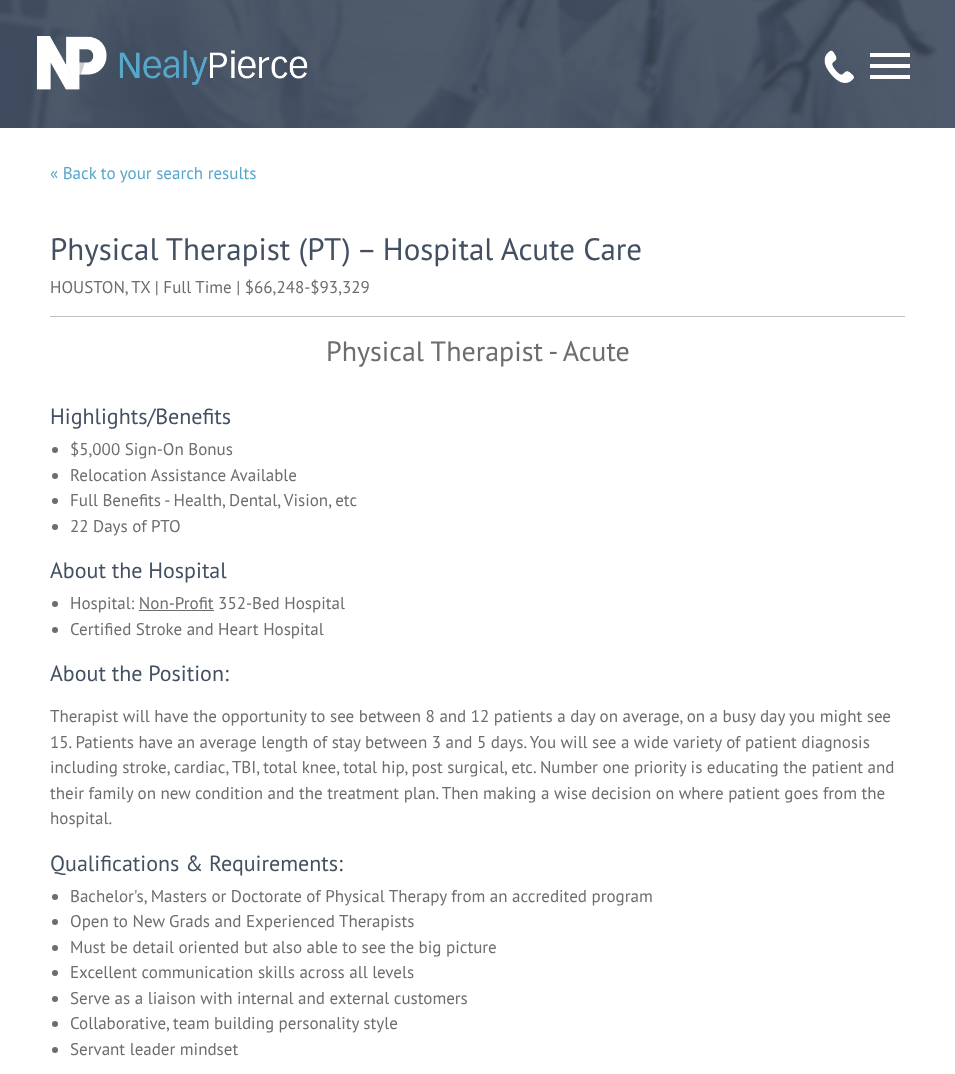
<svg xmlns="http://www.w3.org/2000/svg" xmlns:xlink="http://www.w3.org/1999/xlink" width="955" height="1074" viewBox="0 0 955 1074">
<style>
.cls-1{font:17px PT Sans;fill:#56a7cc}
.cls-2{font:31px PT Sans;fill:#435061}
.cls-3{font:17px PT Sans;fill:#6d6d6d}
.cls-4{font:28px PT Sans;fill:#6d6d6d}
.cls-5{font:22px PT Sans;fill:#435061}
</style>
<rect width="100%" height="100%" fill="#ffffff"/>
<rect fill="#4f5b6c" x="937" y="0" width="18" height="128"/>
<image xlink:href="image0.png" x="0" y="0" width="937" height="128"/>
<image xlink:href="image1.png" x="37" y="36" width="271" height="54"/>
<image xlink:href="image2.png" x="824" y="50" width="30" height="33"/>
<rect fill="#ffffff" x="870" y="53" width="40" height="4"/>
<rect fill="#ffffff" x="870" y="64" width="40" height="4"/>
<rect fill="#ffffff" x="870" y="75" width="40" height="4"/>
<rect fill="#c0c0c0" x="50" y="316" width="855" height="1"/>
<circle fill="#6d6d6d" cx="55" cy="450" r="3"/>
<circle fill="#6d6d6d" cx="55" cy="476" r="3"/>
<circle fill="#6d6d6d" cx="55" cy="501" r="3"/>
<circle fill="#6d6d6d" cx="55" cy="527" r="3"/>
<circle fill="#6d6d6d" cx="55" cy="604" r="3"/>
<rect fill="#6d6d6d" x="139" y="610" width="75" height="1"/>
<circle fill="#6d6d6d" cx="55" cy="630" r="3"/>
<circle fill="#6d6d6d" cx="55" cy="897" r="3"/>
<circle fill="#6d6d6d" cx="55" cy="922" r="3"/>
<circle fill="#6d6d6d" cx="55" cy="948" r="3"/>
<circle fill="#6d6d6d" cx="55" cy="973" r="3"/>
<circle fill="#6d6d6d" cx="55" cy="999" r="3"/>
<circle fill="#6d6d6d" cx="55" cy="1024" r="3"/>
<circle fill="#6d6d6d" cx="55" cy="1050" r="3"/>
<text class="cls-1" x="50" y="179">« Back to your search results</text>
<text class="cls-2" x="50" y="260">Physical Therapist (PT) – Hospital Acute Care</text>
<text class="cls-3" x="50" y="293">HOUSTON, TX | Full Time | $66,248-$93,329</text>
<text class="cls-4" x="326" y="361">Physical Therapist - Acute</text>
<text class="cls-5" x="50" y="424">Highlights/Benefits</text>
<text class="cls-3"><tspan x="70" y="455">$5,000 Sign-On Bonus</tspan><tspan x="70" y="481">Relocation Assistance Available</tspan><tspan x="70" y="506">Full Benefits - Health, Dental, Vision, etc</tspan><tspan x="70" y="532">22 Days of PTO</tspan></text>
<text class="cls-5" x="50" y="578">About the Hospital</text>
<text class="cls-3"><tspan x="70" y="609">Hospital: Non-Profit 352-Bed Hospital</tspan><tspan x="70" y="635">Certified Stroke and Heart Hospital</tspan></text>
<text class="cls-5" x="50" y="681">About the Position:</text>
<text class="cls-3"><tspan x="50" y="722">Therapist will have the opportunity to see between 8 and 12 patients a day on average, on a busy day you might see</tspan><tspan x="50" y="748">15. Patients have an average length of stay between 3 and 5 days. You will see a wide variety of patient diagnosis</tspan><tspan x="50" y="773">including stroke, cardiac, TBI, total knee, total hip, post surgical, etc. Number one priority is educating the patient and</tspan><tspan x="50" y="799">their family on new condition and the treatment plan. Then making a wise decision on where patient goes from the</tspan><tspan x="50" y="824">hospital.</tspan></text>
<text class="cls-5" x="50" y="871">Qualifications &amp; Requirements:</text>
<text class="cls-3"><tspan x="70" y="902">Bachelor's, Masters or Doctorate of Physical Therapy from an accredited program</tspan><tspan x="70" y="927">Open to New Grads and Experienced Therapists</tspan><tspan x="70" y="953">Must be detail oriented but also able to see the big picture</tspan><tspan x="70" y="978">Excellent communication skills across all levels</tspan><tspan x="70" y="1004">Serve as a liaison with internal and external customers</tspan><tspan x="70" y="1029">Collaborative, team building personality style</tspan><tspan x="70" y="1055">Servant leader mindset</tspan></text>
</svg>
